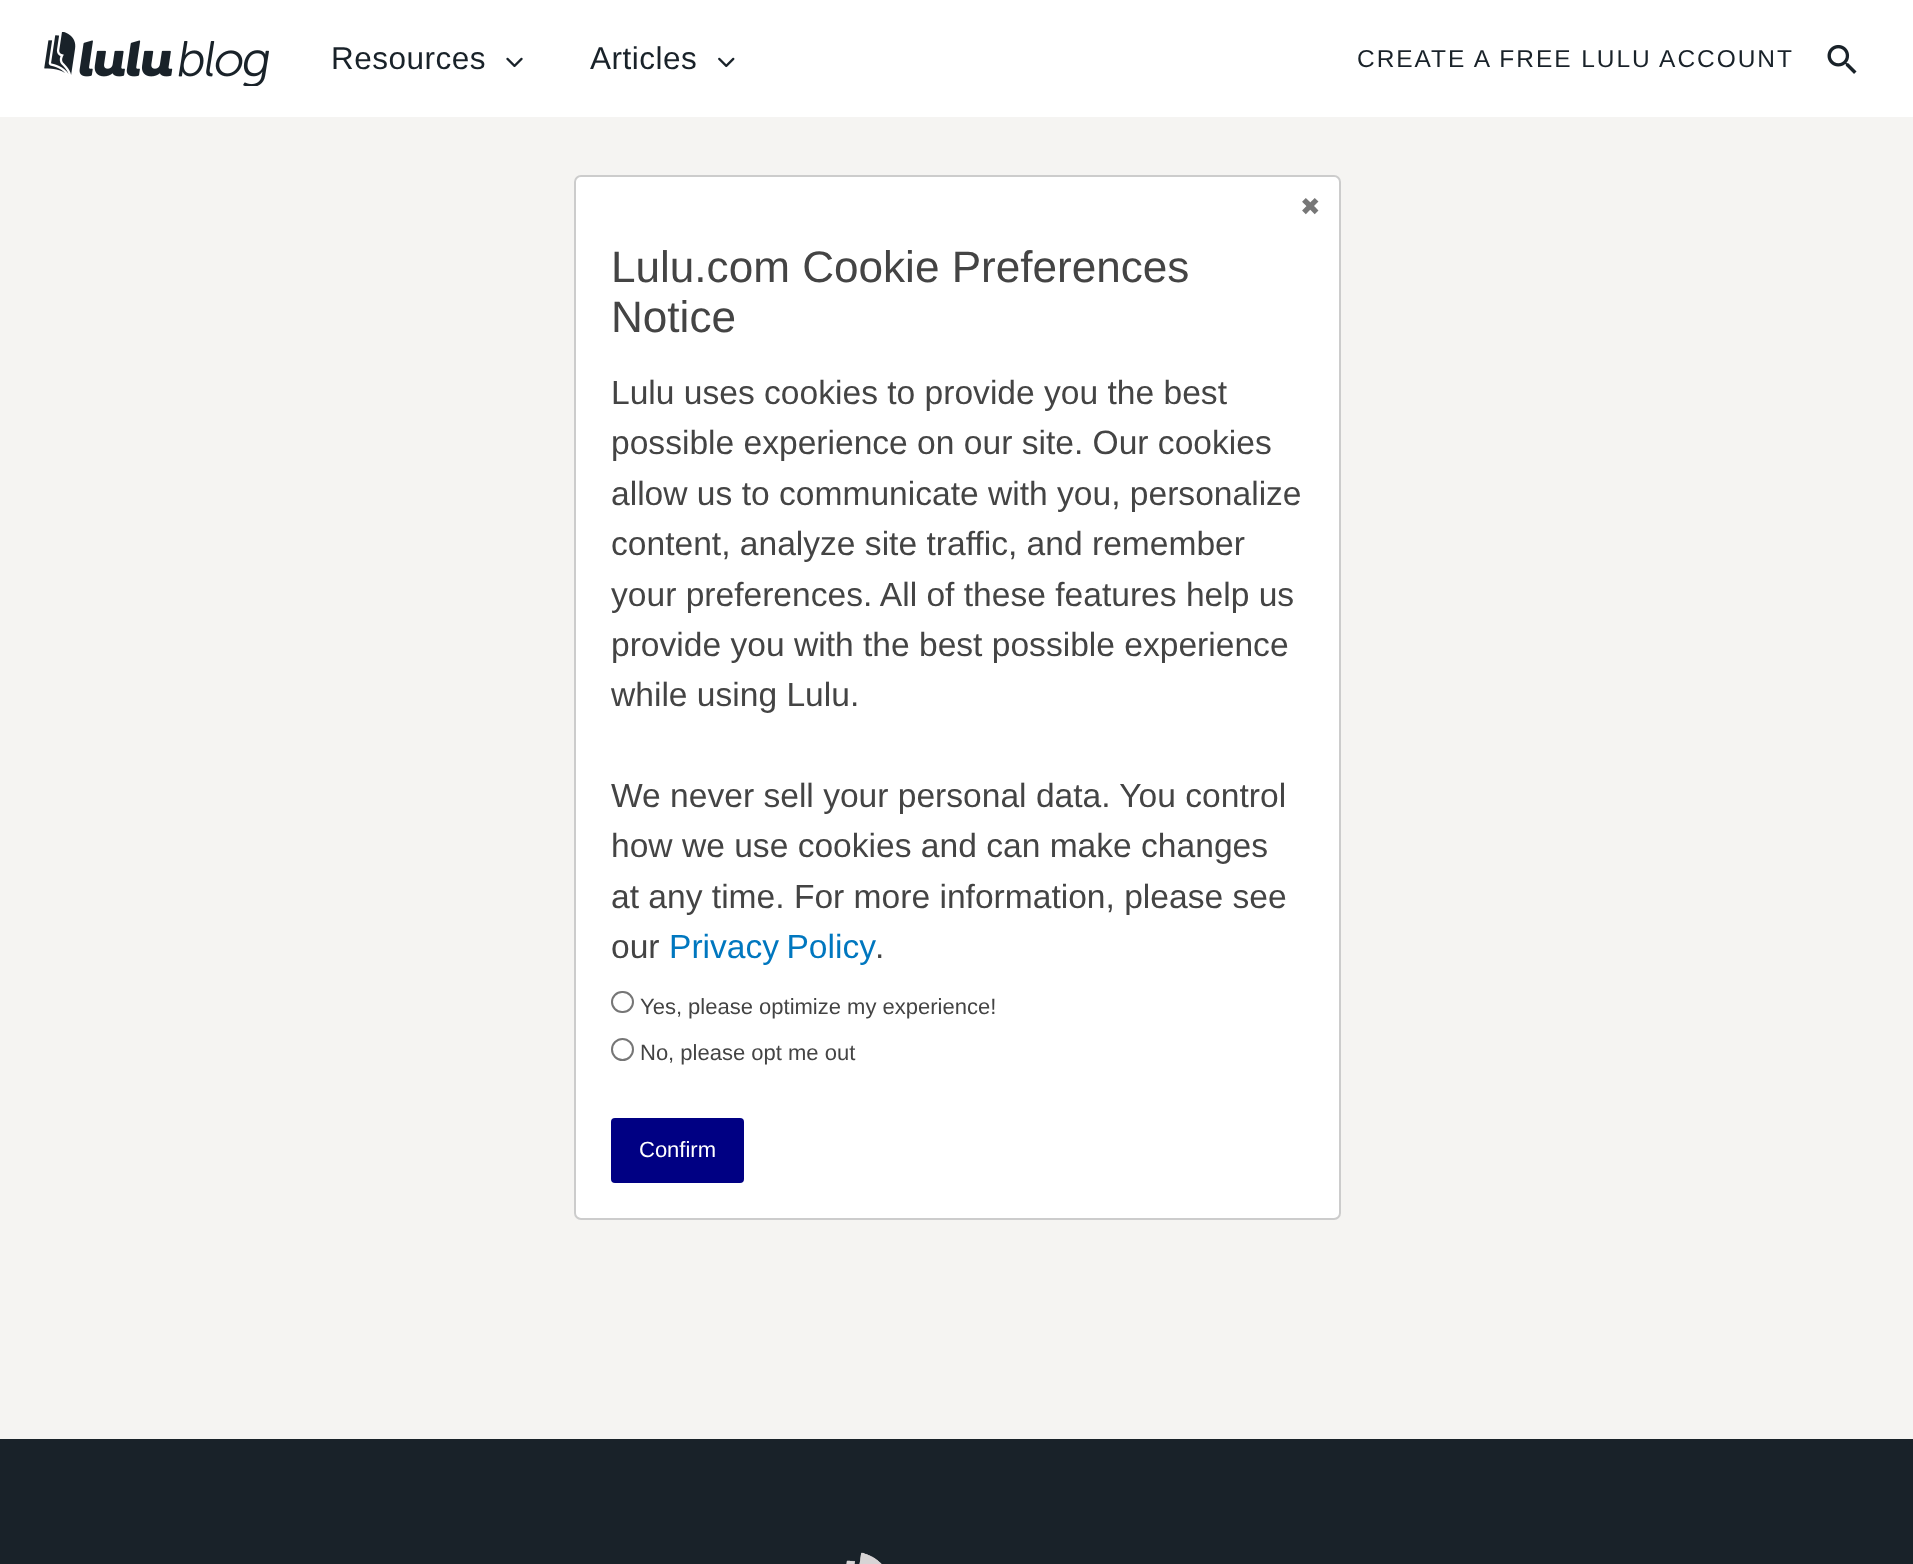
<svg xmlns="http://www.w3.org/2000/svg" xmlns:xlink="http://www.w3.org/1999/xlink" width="1913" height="1564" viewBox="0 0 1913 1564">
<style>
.cls-1{font:31.5px Liberation Sans;letter-spacing:0.5px;fill:#192229}
.cls-2{font:24.5px Liberation Sans;letter-spacing:1.95px;fill:#192229}
.cls-3{font:24.5px DejaVu Sans;fill:#777777}
.cls-4{font:44.1px Liberation Sans;fill:#444444}
.cls-5{font:33.6px Liberation Sans;fill:#444444}
.cls-6{font:33.6px Liberation Sans;fill:#0077bf}
.cls-7{font:22px Liberation Sans;fill:#444444}
.cls-8{font:22px Liberation Sans;fill:#ffffff}
</style>
<rect width="100%" height="100%" fill="#f5f4f2"/>
<rect fill="#ffffff" x="0" y="0" width="1913" height="117"/>
<image xlink:href="image0.png" x="44" y="32" width="225" height="54"/>
<image xlink:href="image1.png" x="506" y="57" width="17" height="11"/>
<image xlink:href="image2.png" x="718" y="57" width="17" height="11"/>
<image xlink:href="image3.png" x="1827" y="44" width="30" height="30"/>
<rect fill="#ffffff" stroke="#cccccc" stroke-width="2" x="575" y="176" width="765" height="1043" rx="6"/>
<rect fill="none" stroke="#767676" stroke-width="2" x="612" y="992" width="21" height="20" rx="10"/>
<circle fill="none" stroke="#767676" stroke-width="2" cx="622.5" cy="1049.5" r="10.5"/>
<rect fill="#000083" x="611" y="1118" width="133" height="65" rx="4"/>
<rect fill="#192229" x="0" y="1439" width="1913" height="125"/>
<image xlink:href="image4.png" x="846" y="1552" width="36" height="12"/>
<text class="cls-1" x="331" y="69">Resources</text>
<text class="cls-1" x="590" y="69">Articles</text>
<text class="cls-2" x="1357" y="67">CREATE A FREE LULU ACCOUNT</text>
<text class="cls-3" x="1300" y="215">✖</text>
<text class="cls-4"><tspan x="611" y="282">Lulu.com Cookie Preferences</tspan><tspan x="611" y="332">Notice</tspan></text>
<text class="cls-5"><tspan x="611" y="404">Lulu uses cookies to provide you the best</tspan><tspan x="611" y="454">possible experience on our site. Our cookies</tspan><tspan x="611" y="505">allow us to communicate with you, personalize</tspan><tspan x="611" y="555">content, analyze site traffic, and remember</tspan><tspan x="611" y="606">your preferences. All of these features help us</tspan><tspan x="611" y="656">provide you with the best possible experience</tspan><tspan x="611" y="706">while using Lulu.</tspan></text>
<text class="cls-5"><tspan x="611" y="807">We never sell your personal data. You control</tspan><tspan x="611" y="857">how we use cookies and can make changes</tspan><tspan x="611" y="908">at any time. For more information, please see</tspan><tspan x="611" y="958">our</tspan></text>
<text class="cls-6" x="669" y="958" word-spacing="-2">Privacy Policy</text>
<text class="cls-5" x="875" y="958">.</text>
<text class="cls-7" x="640" y="1014">Yes, please optimize my experience!</text>
<text class="cls-7" x="640" y="1060">No, please opt me out</text>
<text class="cls-8" x="639" y="1157">Confirm</text>
</svg>
